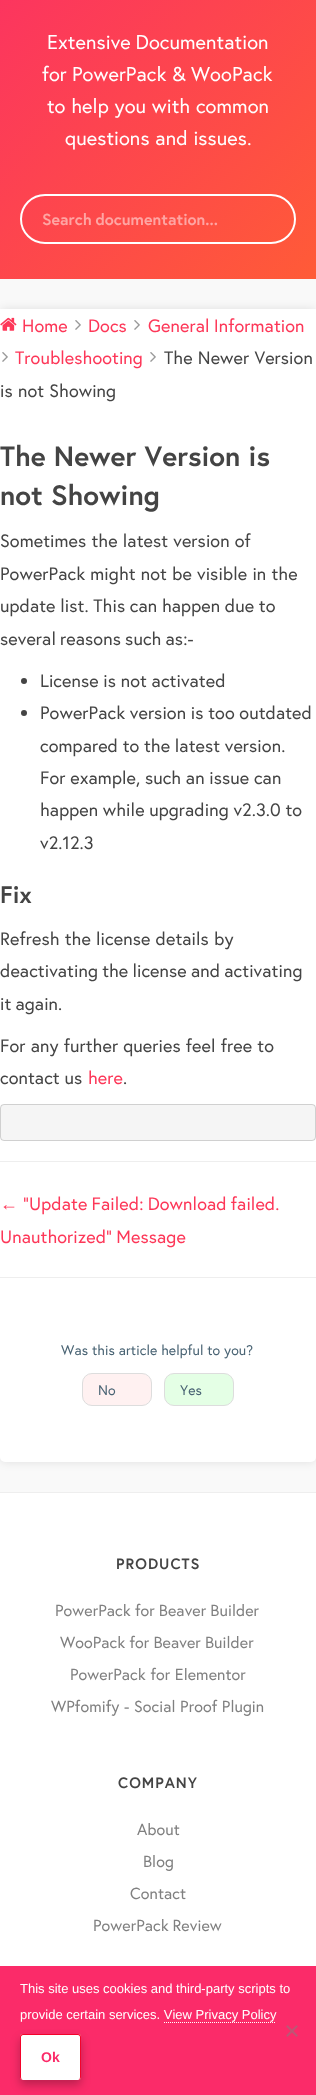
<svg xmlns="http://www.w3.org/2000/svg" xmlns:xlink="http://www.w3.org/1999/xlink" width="316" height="2095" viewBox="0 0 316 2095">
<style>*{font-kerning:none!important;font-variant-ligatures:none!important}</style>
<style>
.cls-1{font:20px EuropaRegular;letter-spacing:0.1px;fill:#ffffff}
.cls-2{font:bold 16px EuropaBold;fill:#fea5a3}
.cls-3{font:18px EuropaRegular;letter-spacing:0.1px;fill:#fd3758}
.cls-4{font:18px EuropaRegular;letter-spacing:0.1px;fill:#444444}
.cls-5{font:bold 28px EuropaBold;fill:#444444}
.cls-6{font:bold 24px EuropaBold;fill:#444444}
.cls-7{font:18px Liberation Sans;letter-spacing:0.1px;fill:#fd3758}
.cls-8{font:14px EuropaRegular;letter-spacing:0.1px;fill:#4a6474}
.cls-9{font:bold 15px EuropaBold;letter-spacing:1px;fill:#444444}
.cls-10{font:16px EuropaRegular;letter-spacing:0.1px;fill:#808080}
.cls-11{font:13px Liberation Sans;fill:#ffffff}
.cls-12{font:bold 14px Liberation Sans;letter-spacing:0.1px;fill:#fb2b69}
</style>
<defs>
<linearGradient id="g1" gradientUnits="userSpaceOnUse" x1="-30" y1="-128" x2="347" y2="248"><stop offset="0" stop-color="#fb2b69"/><stop offset="1" stop-color="#ff5b37"/></linearGradient>
</defs>
<rect width="100%" height="100%" fill="#ffffff"/>
<rect fill="url(#g1)" x="0" y="0" width="316" height="279"/>
<rect fill="none" stroke="#ffffff" stroke-width="2" x="21" y="195" width="274" height="48" rx="24"/>
<rect fill="#eeeeee" x="0" y="1492" width="316" height="1"/>
<rect fill="#f9f9f9" x="0" y="279" width="316" height="1213"/>
<rect fill="#000000" fill-opacity="0.1" filter="blur(5px)" x="0" y="309" width="316" height="1153" rx="5"/>
<rect fill="#ffffff" x="0" y="309" width="316" height="1153" rx="5"/>
<rect fill="#ffffff" x="0" y="309" width="316" height="4"/>
<image xlink:href="image0.png" x="0" y="317" width="17" height="14"/>
<image xlink:href="image1.png" x="75" y="320" width="6" height="10"/>
<image xlink:href="image1.png" x="134" y="320" width="6" height="10"/>
<image xlink:href="image1.png" x="2" y="352" width="6" height="10"/>
<image xlink:href="image1.png" x="150" y="352" width="6" height="10"/>
<circle fill="#444444" cx="24" cy="681" r="3"/>
<circle fill="#444444" cx="24" cy="713" r="3"/>
<rect fill="#f5f5f5" x="0" y="1104" width="316" height="37" rx="4"/>
<rect fill="none" stroke="#000000" stroke-opacity="0.15" x="0.5" y="1104.5" width="315" height="36" rx="3.5"/>
<rect fill="#eeeeee" x="0" y="1161" width="316" height="1"/>
<rect fill="#eeeeee" x="0" y="1277" width="316" height="1"/>
<rect fill="#fff1f1" stroke="#dddddd" x="82.5" y="1373.5" width="69" height="32" rx="9.5"/>
<rect fill="#e4ffe5" stroke="#dddddd" x="164.5" y="1373.5" width="69" height="32" rx="9.5"/>
<rect fill="#fb2b69" x="0" y="1966" width="316" height="129"/>
<path fill="none" stroke="#ffffff" stroke-dasharray="1 1" d="M164 2022.5H276"/>
<path fill="#be5675" d="M296.5 2025L298 2026.5L287.5 2037L286 2035.5Z"/>
<path fill="#be5675" d="M286 2026.5L287.5 2025L298 2035.5L296.5 2037Z"/>
<rect fill="#000000" fill-opacity="0.25" filter="blur(5px)" x="20" y="2039" width="61" height="46" rx="3"/>
<rect fill="#ffffff" x="20" y="2034" width="61" height="46" rx="3"/>
<path fill="#f4022b" fill-rule="evenodd" d="M23 2034H78C80 2034 81 2035 81 2037V2077C81 2079 80 2080 78 2080H23C21 2080 20 2079 20 2077V2037C20 2035 21 2034 23 2034ZM23 2035H78C79 2035 80 2036 80 2037V2077C80 2079 79 2080 78 2080H23C22 2080 21 2079 21 2077V2037C21 2036 22 2035 23 2035Z"/>
<text class="cls-1" x="47" y="49" word-spacing="-1">Extensive Documentation</text>
<text class="cls-1" x="42" y="81" word-spacing="-0.5">for PowerPack &amp; WooPack</text>
<text class="cls-1" x="47" y="113">to help you with common</text>
<text class="cls-1" x="65" y="145">questions and issues.</text>
<text class="cls-2" x="42" y="225" word-spacing="-1">Search documentation...</text>
<text class="cls-3" x="22" y="332">Home</text>
<text class="cls-3" x="88" y="332">Docs</text>
<text class="cls-3" x="148" y="332" word-spacing="-1">General Information</text>
<text class="cls-3" x="15" y="364">Troubleshooting</text>
<text class="cls-4" x="164" y="364">The Newer Version</text>
<text class="cls-4" x="0" y="397">is not Showing</text>
<text class="cls-5"><tspan x="0" y="466">The Newer Version is</tspan><tspan x="0" y="505">not Showing</tspan></text>
<text class="cls-4"><tspan x="0" y="547">Sometimes the latest version of</tspan><tspan x="0" y="580">PowerPack might not be visible in the</tspan><tspan x="0" y="612" word-spacing="-0.5">update list. This can happen due to</tspan><tspan x="0" y="645" word-spacing="-1">several reasons such as:-</tspan></text>
<text class="cls-4"><tspan x="40" y="687" word-spacing="-0.5">License is not activated</tspan><tspan x="40" y="719" word-spacing="-0.5">PowerPack version is too outdated</tspan><tspan x="40" y="752" word-spacing="-0.5">compared to the latest version.</tspan><tspan x="40" y="784" word-spacing="-0.5">For example, such an issue can</tspan><tspan x="40" y="816" word-spacing="-0.5">happen while upgrading v2.3.0 to</tspan><tspan x="40" y="849">v2.12.3</tspan></text>
<text class="cls-6" x="0" y="903">Fix</text>
<text class="cls-4"><tspan x="0" y="945">Refresh the license details by</tspan><tspan x="0" y="977" word-spacing="-1">deactivating the license and activating</tspan><tspan x="0" y="1010" word-spacing="-1">it again.</tspan></text>
<text class="cls-4"><tspan x="0" y="1052">For any further queries feel free to</tspan><tspan x="0" y="1084" word-spacing="-0.5">contact us</tspan></text>
<text class="cls-3" x="88" y="1084">here</text>
<text class="cls-4" x="123" y="1084">.</text>
<text class="cls-7" x="0" y="1210">←</text>
<text class="cls-3" x="23" y="1210" word-spacing="-1">“Update Failed: Download failed.</text>
<text class="cls-3" x="0" y="1243" word-spacing="-1">Unauthorized” Message</text>
<text class="cls-8" x="61" y="1355" word-spacing="-0.25">Was this article helpful to you?</text>
<text class="cls-8" x="98" y="1395">No</text>
<text class="cls-8" x="180" y="1395">Yes</text>
<text class="cls-9" x="116" y="1569">PRODUCTS</text>
<text class="cls-10" x="55" y="1616" word-spacing="-0.5">PowerPack for Beaver Builder</text>
<text class="cls-10" x="60" y="1648" word-spacing="-0.5">WooPack for Beaver Builder</text>
<text class="cls-10" x="70" y="1680">PowerPack for Elementor</text>
<text class="cls-10" x="51" y="1712">WPfomify - Social Proof Plugin</text>
<text class="cls-9" x="118" y="1788">COMPANY</text>
<text class="cls-10" x="137" y="1835">About</text>
<text class="cls-10" x="143" y="1867">Blog</text>
<text class="cls-10" x="130" y="1899">Contact</text>
<text class="cls-10" x="93" y="1931" word-spacing="-1">PowerPack Review</text>
<text class="cls-11" x="20" y="1993">This site uses cookies and third-party scripts to</text>
<text class="cls-11" x="20" y="2019">provide certain services. View Privacy Policy</text>
<text class="cls-12" x="41" y="2062">Ok</text>
</svg>
